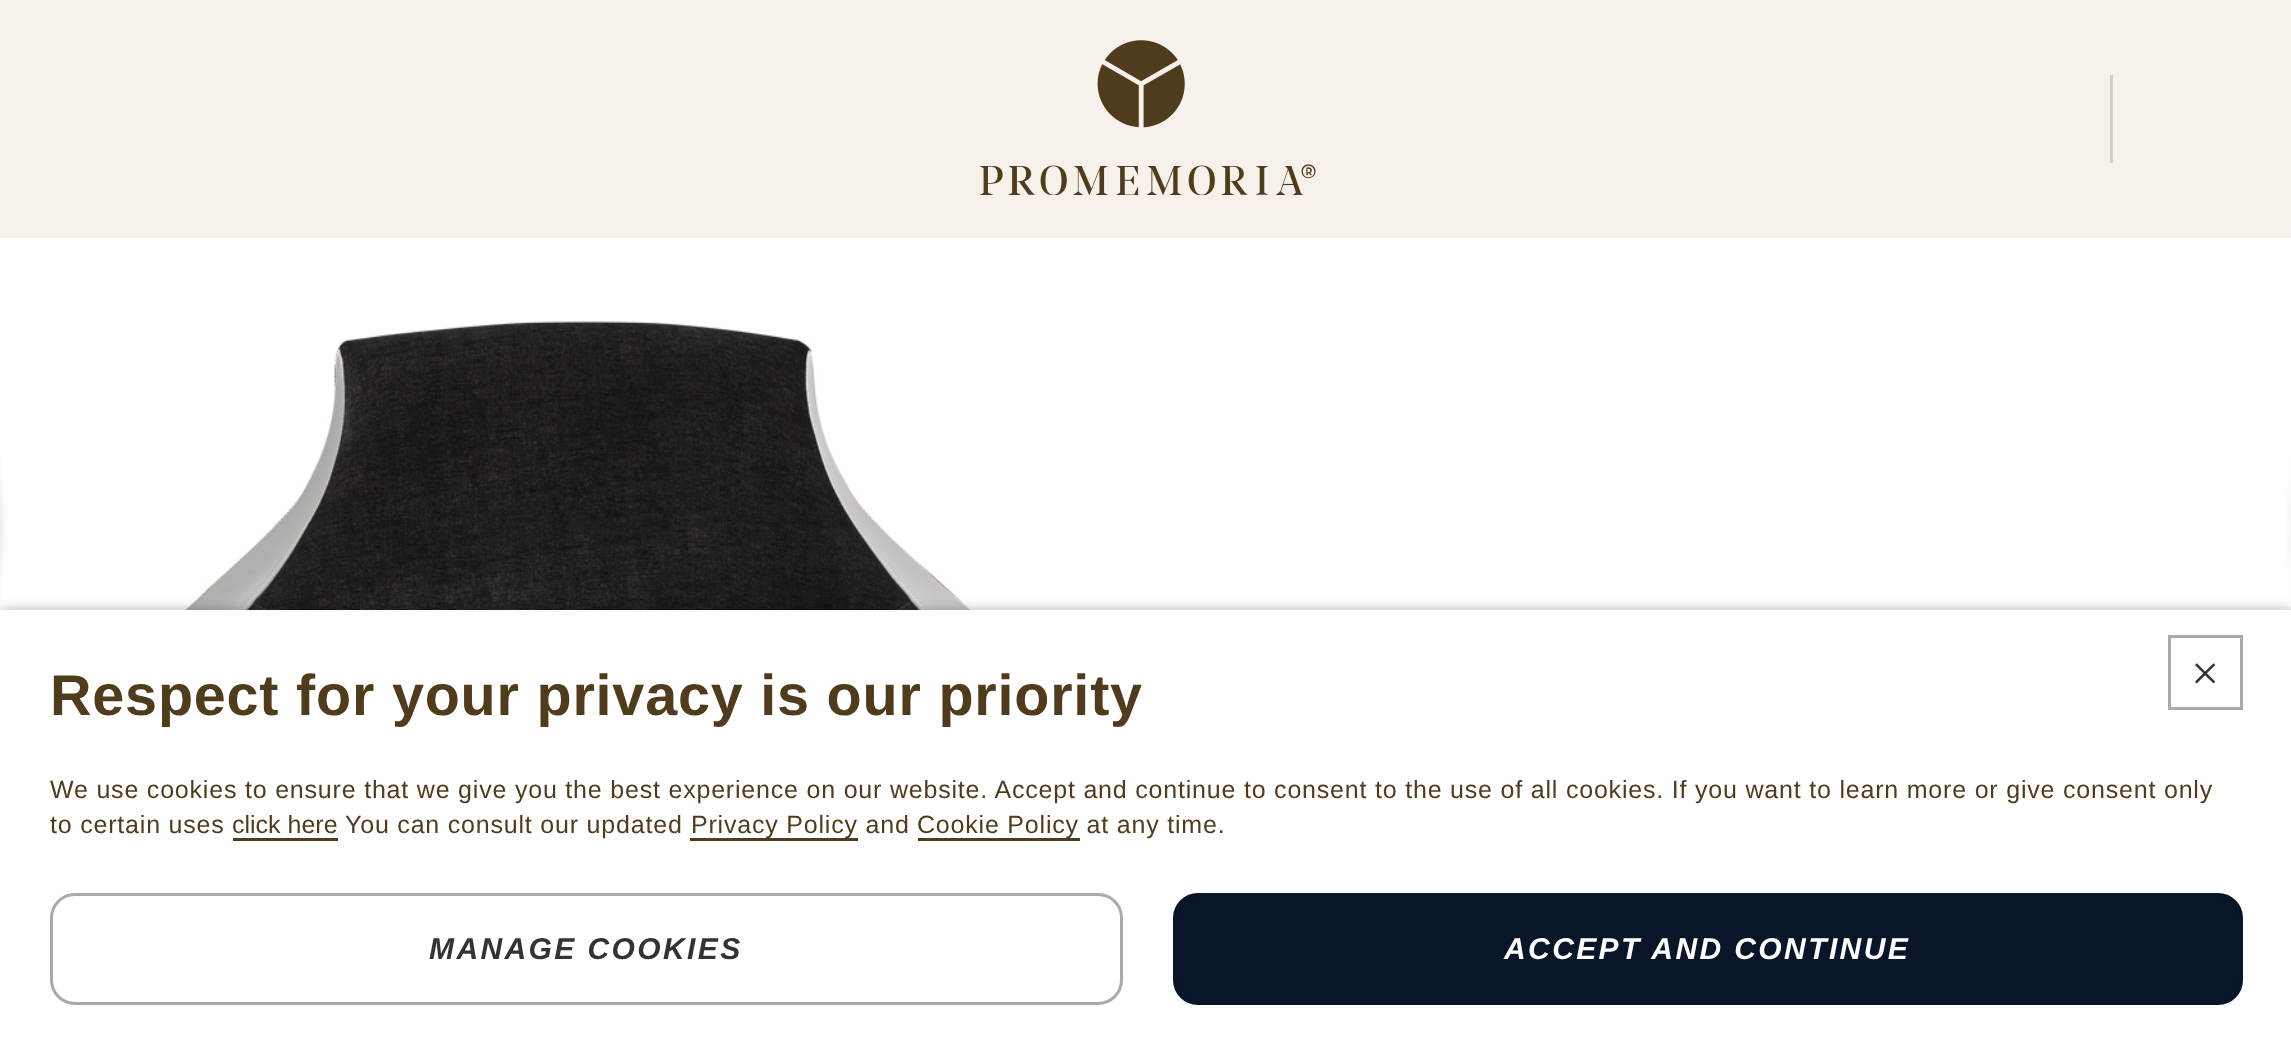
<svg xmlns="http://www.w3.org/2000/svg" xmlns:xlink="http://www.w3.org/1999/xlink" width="2291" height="1053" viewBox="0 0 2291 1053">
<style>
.cls-1{font:50px Liberation Serif;fill:#333333}
.cls-2{font:bold 57.5px Liberation Sans;letter-spacing:0.8px;fill:#503c1c}
.cls-3{font:25px Liberation Sans;letter-spacing:0.8px;fill:#503c1c}
.cls-4{font:25px Liberation Sans;fill:#503c1c}
.cls-5{font:italic bold 30px Liberation Sans;letter-spacing:2.4px;fill:#333333}
.cls-6{font:italic bold 30px Liberation Sans;letter-spacing:2.4px;fill:#ffffff}
</style>
<rect width="100%" height="100%" fill="#ffffff"/>
<rect fill="#f6f1eb" x="0" y="0" width="2291" height="238"/>
<image xlink:href="image0.png" x="980" y="40" width="336" height="155"/>
<rect fill="#d1cdc8" x="2110" y="75" width="3" height="88"/>
<image xlink:href="image1.png" x="136" y="321" width="901" height="289"/>
<rect fill="#000000" fill-opacity="0.15" filter="blur(5px)" x="-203" y="340" width="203" height="375" rx="187.5"/>
<rect fill="#000000" fill-opacity="0.15" filter="blur(5px)" x="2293" y="340" width="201" height="375" rx="187.5"/>
<rect fill="#000000" fill-opacity="0.3" filter="blur(6px)" x="0" y="610" width="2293" height="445"/>
<rect fill="#ffffff" x="0" y="610" width="2291" height="443"/>
<rect fill="none" stroke="#aaaaaa" stroke-width="3" x="2169.5" y="636.5" width="72" height="72"/>
<rect fill="#503c1c" x="233" y="838" width="105" height="3"/>
<rect fill="#503c1c" x="690" y="838" width="168" height="3"/>
<rect fill="#503c1c" x="918" y="838" width="162" height="3"/>
<rect fill="none" stroke="#aaaaaa" stroke-width="3" x="51.5" y="894.5" width="1070" height="109" rx="23.5"/>
<rect fill="#091528" stroke="#091528" stroke-width="3" x="1174.5" y="894.5" width="1067" height="109" rx="23.5"/>
<text class="cls-1" x="2191" y="690">×</text>
<text class="cls-2" x="50" y="715">Respect for your privacy is our priority</text>
<text class="cls-3"><tspan x="50" y="798">We use cookies to ensure that we give you the best experience on our website. Accept and continue to consent to the use of all cookies. If you want to learn more or give consent only</tspan><tspan x="50" y="833">to certain uses</tspan></text>
<text class="cls-4" x="232" y="833">click here</text>
<text class="cls-3" x="345" y="833">You can consult our updated</text>
<text class="cls-3" x="691" y="833">Privacy Policy and</text>
<text class="cls-3" x="917" y="833">Cookie Policy at any time.</text>
<text class="cls-5" x="429" y="959">MANAGE COOKIES</text>
<text class="cls-6" x="1504" y="959">ACCEPT AND CONTINUE</text>
</svg>
